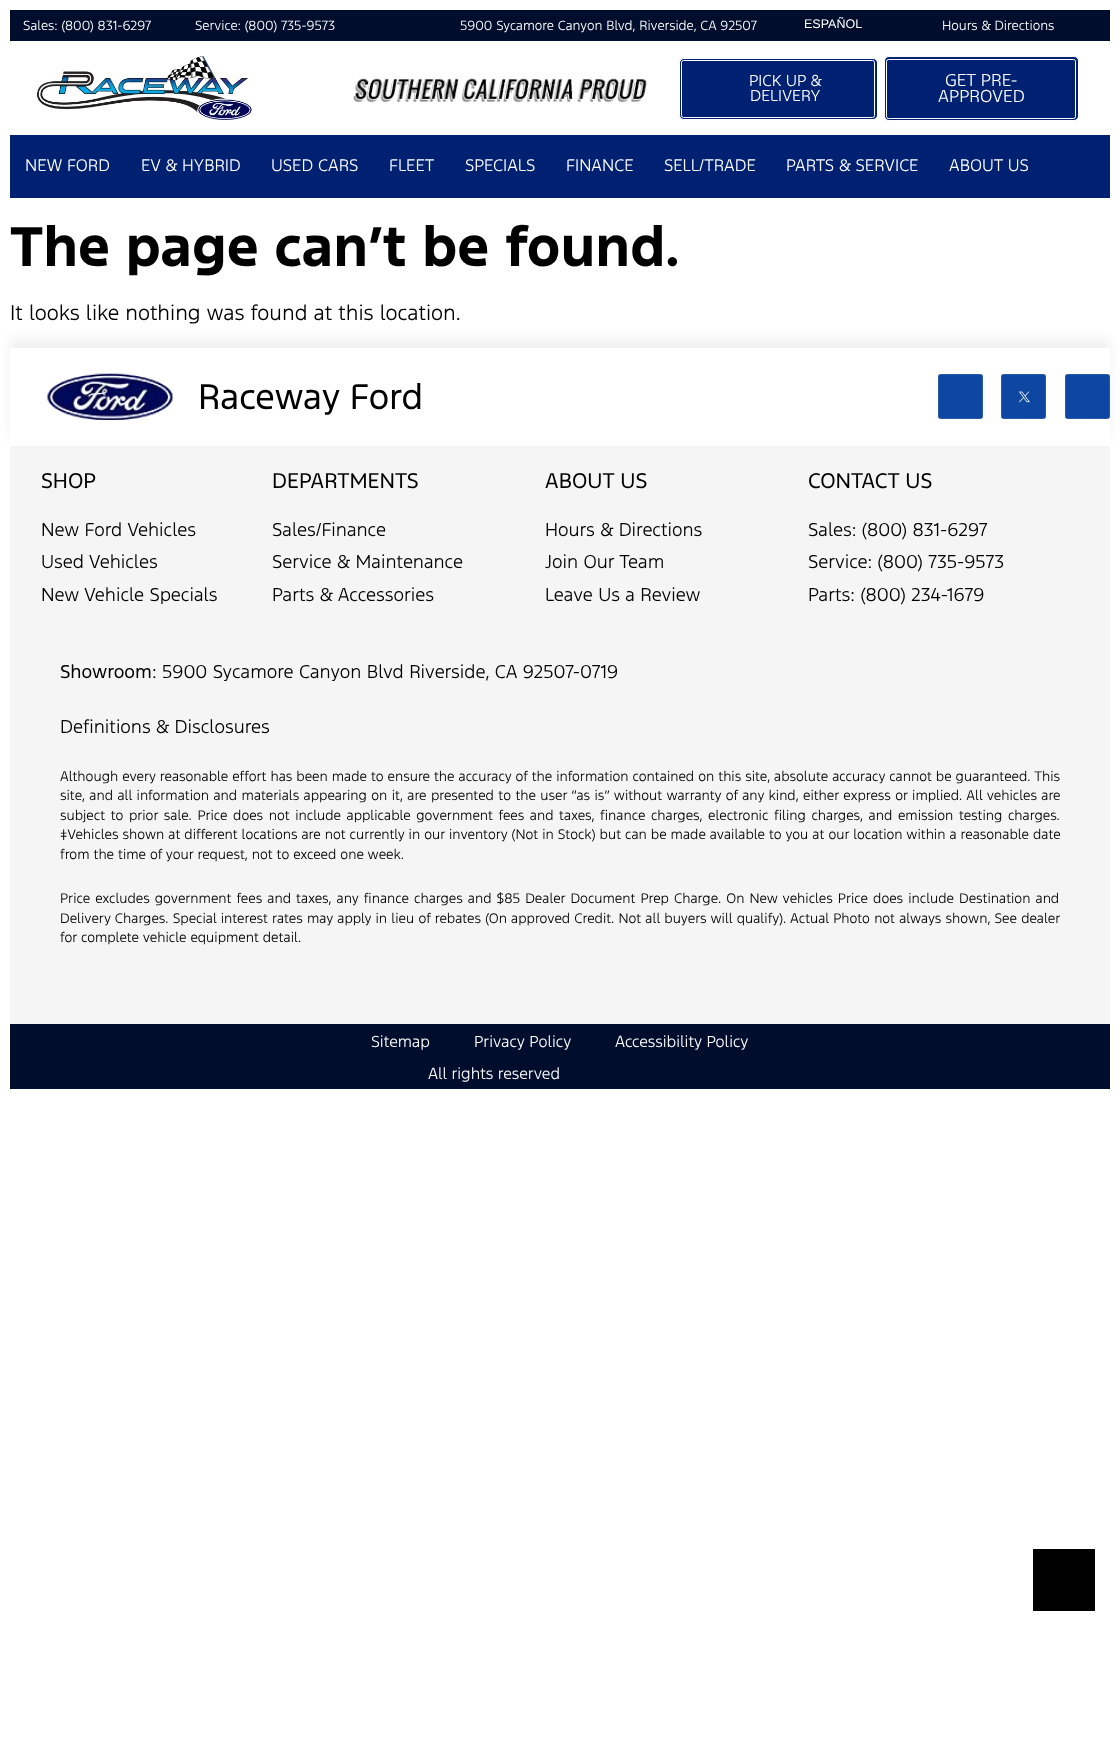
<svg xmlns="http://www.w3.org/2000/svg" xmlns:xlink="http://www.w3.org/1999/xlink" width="1120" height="1743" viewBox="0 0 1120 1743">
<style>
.cls-1{font:300 12.5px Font;fill:#ffffff}
.cls-2{font:12.5px Liberation Sans;fill:#ffffff}
.cls-3{font:300 15px Font;fill:#ffffff}
.cls-4{font:300 16.25px Font;fill:#ffffff}
.cls-5{font:300 15.75px Font;fill:#ffffff}
.cls-6{font:bold 52.5px Font;fill:#000000}
.cls-7{font:300 20px Font;fill:#000000}
.cls-8{font:33.5px Font;fill:#000000}
.cls-9{font:20px Font;fill:#000000}
.cls-10{font:300 17.5px Font;fill:#000000}
.cls-11{font:17.5px Font;fill:#000000}
.cls-12{font:300 13px Font;fill:#000000}
</style>
<defs>
<clipPath id="clip1"><path d="M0 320H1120V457H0ZM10 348H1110V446H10Z" clip-rule="evenodd"/></clipPath>
</defs>
<rect width="100%" height="100%" fill="#ffffff"/>
<rect fill="#000d2d" x="10" y="10" width="1100" height="31"/>
<image xlink:href="image0.png" x="37" y="56" width="215" height="64"/>
<image xlink:href="image1.png" x="353" y="78" width="294" height="25"/>
<rect fill="#002171" stroke="#ffffff" x="679.5" y="58.5" width="198" height="61" rx="4.5"/>
<rect fill="none" stroke="#ffffff" x="681.5" y="60.5" width="193" height="57" rx="2"/>
<rect fill="#002171" stroke="#ffffff" x="884.5" y="56.5" width="194" height="64" rx="4.5"/>
<rect fill="none" stroke="#ffffff" x="886.5" y="59.5" width="189" height="59" rx="2"/>
<rect fill="#002171" x="10" y="135" width="1100" height="63"/>
<rect fill="#f5f5f5" x="10" y="446" width="1100" height="578"/>
<g clip-path="url(#clip1)">
<rect fill="#000000" fill-opacity="0.06" filter="blur(6px)" x="10" y="339" width="1100" height="99"/>
</g>
<image xlink:href="image2.png" x="47" y="373" width="126" height="47"/>
<rect fill="#0d47a1" stroke="#2559aa" x="938.5" y="374.5" width="44" height="44" rx="2"/>
<rect fill="#0d47a1" stroke="#2559aa" x="1001.5" y="374.5" width="44" height="44" rx="2"/>
<image xlink:href="image3.png" x="1018" y="391" width="12" height="12"/>
<rect fill="#0d47a1" stroke="#2559aa" x="1065.5" y="374.5" width="44" height="44" rx="2"/>
<rect fill="#000d2d" x="10" y="1024" width="1100" height="65"/>
<rect fill="#000000" x="1033" y="1549" width="62" height="62"/>
<text class="cls-1" x="23" y="30">Sales: (800) 831-6297</text>
<text class="cls-1" x="195" y="30">Service: (800) 735-9573</text>
<text class="cls-1" x="460" y="30">5900 Sycamore Canyon Blvd, Riverside, CA 92507</text>
<text class="cls-2" x="804" y="28">ESPAÑOL</text>
<text class="cls-1" x="942" y="30">Hours &amp; Directions</text>
<text class="cls-3" x="749" y="86">PICK UP &amp;</text>
<text class="cls-3" x="750" y="101">DELIVERY</text>
<text class="cls-4" x="945" y="86">GET PRE-</text>
<text class="cls-4" x="938" y="102">APPROVED</text>
<text class="cls-5" x="25" y="171">NEW FORD</text>
<text class="cls-5" x="141" y="171">EV &amp; HYBRID</text>
<text class="cls-5" x="271" y="171">USED CARS</text>
<text class="cls-5" x="389" y="171">FLEET</text>
<text class="cls-5" x="465" y="171">SPECIALS</text>
<text class="cls-5" x="566" y="171">FINANCE</text>
<text class="cls-5" x="664" y="171">SELL/TRADE</text>
<text class="cls-5" x="786" y="171">PARTS &amp; SERVICE</text>
<text class="cls-5" x="949" y="171">ABOUT US</text>
<text class="cls-6" x="10" y="266">The page can’t be found.</text>
<text class="cls-7" x="10" y="320">It looks like nothing was found at this location.</text>
<text class="cls-8" x="198" y="409">Raceway Ford</text>
<text class="cls-9" x="41" y="488">SHOP</text>
<text class="cls-10"><tspan x="41" y="536">New Ford Vehicles</tspan><tspan x="41" y="568">Used Vehicles</tspan><tspan x="41" y="601">New Vehicle Specials</tspan></text>
<text class="cls-9" x="272" y="488">DEPARTMENTS</text>
<text class="cls-10"><tspan x="272" y="536">Sales/Finance</tspan><tspan x="272" y="568">Service &amp; Maintenance</tspan><tspan x="272" y="601">Parts &amp; Accessories</tspan></text>
<text class="cls-9" x="545" y="488">ABOUT US</text>
<text class="cls-10"><tspan x="545" y="536">Hours &amp; Directions</tspan><tspan x="545" y="568">Join Our Team</tspan><tspan x="545" y="601">Leave Us a Review</tspan></text>
<text class="cls-9" x="808" y="488">CONTACT US</text>
<text class="cls-10"><tspan x="808" y="536">Sales: (800) 831-6297</tspan><tspan x="808" y="568">Service: (800) 735-9573</tspan><tspan x="808" y="601">Parts: (800) 234-1679</tspan></text>
<text class="cls-11" x="60" y="678">Showroom</text>
<text class="cls-10" x="152" y="678">: 5900 Sycamore Canyon Blvd Riverside, CA 92507-0719</text>
<text class="cls-10" x="60" y="733">Definitions &amp; Disclosures</text>
<text class="cls-12"><tspan x="60" y="781">Although every reasonable effort has been made to ensure the accuracy of the information contained on this site, absolute accuracy cannot be guaranteed. This</tspan><tspan x="60" y="800" word-spacing="0.4">site, and all information and materials appearing on it, are presented to the user “as is” without warranty of any kind, either express or implied. All vehicles are</tspan><tspan x="60" y="820" word-spacing="1.6">subject to prior sale. Price does not include applicable government fees and taxes, finance charges, electronic filing charges, and emission testing charges.</tspan><tspan x="60" y="839">‡Vehicles shown at different locations are not currently in our inventory (Not in Stock) but can be made available to you at our location within a reasonable date</tspan><tspan x="60" y="859">from the time of your request, not to exceed one week.</tspan></text>
<text class="cls-12"><tspan x="60" y="903" word-spacing="1.1">Price excludes government fees and taxes, any finance charges and $85 Dealer Document Prep Charge. On New vehicles Price does include Destination and</tspan><tspan x="60" y="923" word-spacing="0.2">Delivery Charges. Special interest rates may apply in lieu of rebates (On approved Credit. Not all buyers will qualify). Actual Photo not always shown, See dealer</tspan><tspan x="60" y="942">for complete vehicle equipment detail.</tspan></text>
<text class="cls-3" x="371" y="1047">Sitemap</text>
<text class="cls-3" x="474" y="1047">Privacy Policy</text>
<text class="cls-3" x="615" y="1047">Accessibility Policy</text>
<text class="cls-3" x="428" y="1079">All rights reserved</text>
</svg>
